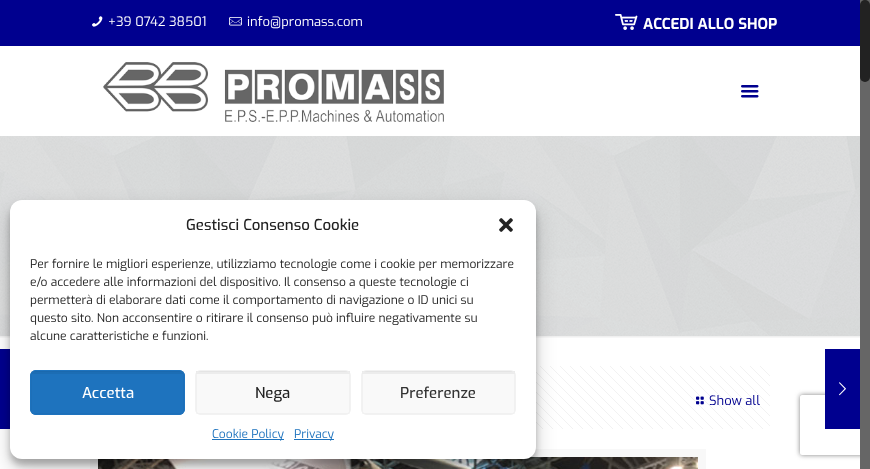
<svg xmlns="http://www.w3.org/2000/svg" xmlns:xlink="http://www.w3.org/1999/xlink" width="870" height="469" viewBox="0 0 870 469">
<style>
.cls-1{font:13px Exo;fill:#ffffff}
.cls-2{font:bold 15px Exo;fill:#ffffff}
.cls-3{font:13px Exo;fill:#00008f}
.cls-4{font:500 15px Exo;fill:#222222}
.cls-5{font:12px Exo;fill:#222222}
.cls-6{font:500 15px Exo;fill:#ffffff}
.cls-7{font:500 15px Exo;fill:#333333}
.cls-8{font:12px Exo;fill:#1e73be}
</style>
<defs>
<clipPath id="clip1"><path d="M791 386H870V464H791ZM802 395H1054C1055 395 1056 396 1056 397V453C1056 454 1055 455 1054 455H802C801 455 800 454 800 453V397C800 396 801 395 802 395Z" clip-rule="evenodd"/></clipPath>
</defs>
<rect width="100%" height="100%" fill="#ffffff"/>
<image xlink:href="image0.png" x="0" y="136" width="860" height="200"/>
<rect fill="#00008f" x="0" y="0" width="860" height="46"/>
<image xlink:href="image1.png" x="92" y="16" width="11" height="11"/>
<image xlink:href="image2.png" x="229" y="17" width="13" height="9"/>
<image xlink:href="image3.png" x="615" y="14" width="23" height="16"/>
<image xlink:href="image4.png" x="103" y="62" width="341" height="60"/>
<image xlink:href="image5.png" x="741" y="85" width="18" height="13"/>
<image xlink:href="image6.png" x="0" y="336" width="860" height="2"/>
<image xlink:href="image7.png" x="536" y="366" width="234" height="63"/>
<image xlink:href="image8.png" x="696" y="396" width="8" height="9"/>
<rect fill="none" stroke="#f8f8f8" stroke-width="8" x="94" y="453" width="608" height="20"/>
<image xlink:href="image9.png" x="98" y="457" width="600" height="12"/>
<g clip-path="url(#clip1)">
<rect fill="#808080" filter="blur(2.5px)" x="800" y="395" width="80" height="60" rx="2"/>
</g>
<rect fill="#666666" x="860" y="0" width="10" height="469"/>
<rect fill="#222222" x="860" y="0" width="10" height="82" rx="5"/>
<rect fill="#00008f" x="0" y="349" width="10" height="80"/>
<rect fill="#000000" fill-opacity="0.23" filter="blur(3px)" x="10" y="206" width="526" height="259" rx="12"/>
<rect fill="#000000" fill-opacity="0.19" filter="blur(10px)" x="10" y="210" width="526" height="259" rx="12"/>
<rect fill="#ffffff" x="10" y="200" width="526" height="259" rx="12"/>
<image xlink:href="image10.png" x="499" y="218" width="14" height="14"/>
<rect fill="#1e73be" x="30" y="370" width="155" height="45" rx="6"/>
<rect fill="#000000" fill-opacity="0.05" x="31" y="371" width="153" height="3"/>
<rect fill="none" stroke="#000000" stroke-opacity="0.03" x="31.5" y="371.5" width="152" height="42"/>
<rect fill="none" stroke="#1e73be" x="30.5" y="370.5" width="154" height="44" rx="5.5"/>
<rect fill="#f9f9f9" x="195" y="370" width="156" height="45" rx="6"/>
<rect fill="#000000" fill-opacity="0.05" x="196" y="371" width="154" height="3"/>
<rect fill="none" stroke="#000000" stroke-opacity="0.03" x="196.5" y="371.5" width="153" height="42"/>
<rect fill="none" stroke="#f2f2f2" x="195.5" y="370.5" width="155" height="44" rx="5.5"/>
<rect fill="#f9f9f9" x="361" y="370" width="155" height="45" rx="6"/>
<rect fill="#000000" fill-opacity="0.05" x="362" y="371" width="153" height="3"/>
<rect fill="none" stroke="#000000" stroke-opacity="0.03" x="362.5" y="371.5" width="152" height="42"/>
<rect fill="none" stroke="#f2f2f2" x="361.5" y="370.5" width="154" height="44" rx="5.5"/>
<rect fill="#1e73be" x="212" y="439" width="72" height="1"/>
<rect fill="#1e73be" x="294" y="439" width="40" height="1"/>
<rect fill="#00008f" x="825" y="349" width="35" height="80"/>
<image xlink:href="image11.png" x="839" y="382" width="7" height="14"/>
<text class="cls-1" x="108" y="26">+39 0742 38501</text>
<text class="cls-1" x="247" y="26">info@promass.com</text>
<text class="cls-2" x="643" y="29">ACCEDI ALLO SHOP</text>
<text class="cls-3" x="709" y="405">Show all</text>
<text class="cls-4" x="186" y="230">Gestisci Consenso Cookie</text>
<text class="cls-5"><tspan x="30" y="268">Per fornire le migliori esperienze, utilizziamo tecnologie come i cookie per memorizzare</tspan><tspan x="30" y="286">e/o accedere alle informazioni del dispositivo. Il consenso a queste tecnologie ci</tspan><tspan x="30" y="304">permetterà di elaborare dati come il comportamento di navigazione o ID unici su</tspan><tspan x="30" y="322">questo sito. Non acconsentire o ritirare il consenso può influire negativamente su</tspan><tspan x="30" y="340">alcune caratteristiche e funzioni.</tspan></text>
<text class="cls-6" x="82" y="398">Accetta</text>
<text class="cls-4" x="255" y="398">Nega</text>
<text class="cls-7" x="400" y="398">Preferenze</text>
<text class="cls-8" x="212" y="438">Cookie Policy</text>
<text class="cls-8" x="294" y="438">Privacy</text>
</svg>
